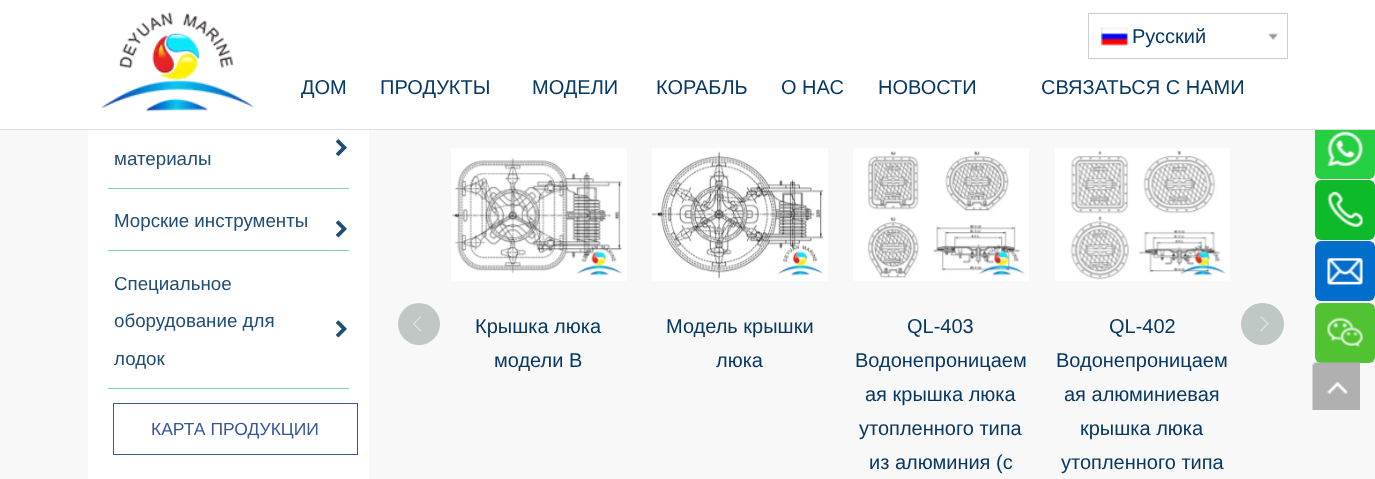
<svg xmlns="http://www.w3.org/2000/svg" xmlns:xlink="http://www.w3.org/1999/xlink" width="1375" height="479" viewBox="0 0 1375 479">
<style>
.cls-1{font:20px Liberation Sans;fill:#073763}
.cls-2{font:18.75px Liberation Sans;fill:#204d74}
.cls-3{font:17.5px Liberation Sans;fill:#365699}
</style>
<rect width="100%" height="100%" fill="#f8f8f8"/>
<rect fill="#26cf41" x="1315" y="119" width="60" height="60" rx="6"/>
<rect fill="#ffffff" x="0" y="0" width="1375" height="129"/>
<rect fill="#dddddd" x="0" y="129" width="1375" height="1"/>
<image xlink:href="image0.png" x="101" y="12" width="153" height="100"/>
<rect fill="none" stroke="#cccccc" x="1088.5" y="13.5" width="199" height="45"/>
<image xlink:href="image1.png" x="1101" y="27" width="27" height="19"/>
<image xlink:href="image2.png" x="1268" y="33" width="10" height="7"/>
<rect fill="#ffffff" x="88" y="130" width="281" height="349"/>
<image xlink:href="image3.png" x="336" y="139" width="11" height="17"/>
<rect fill="#79d8a4" x="108" y="188" width="241" height="1"/>
<image xlink:href="image4.png" x="336" y="220" width="11" height="18"/>
<rect fill="#79d8a4" x="108" y="250" width="241" height="1"/>
<image xlink:href="image4.png" x="336" y="320" width="11" height="18"/>
<rect fill="#79d8a4" x="108" y="388" width="241" height="1"/>
<rect fill="none" stroke="#365699" x="113.5" y="403.5" width="244" height="51"/>
<circle fill="#bfc8c5" cx="419" cy="324" r="21"/>
<image xlink:href="image5.png" x="413" y="316" width="9" height="16"/>
<rect fill="#bfc8c5" x="1241" y="303" width="43" height="42" rx="21"/>
<image xlink:href="image6.png" x="1260" y="316" width="9" height="16"/>
<image xlink:href="image7.png" x="451" y="148" width="176" height="133"/>
<image xlink:href="image8.png" x="651" y="148" width="177" height="133"/>
<image xlink:href="image9.png" x="853" y="148" width="176" height="133"/>
<image xlink:href="image10.png" x="1055" y="148" width="175" height="133"/>
<image xlink:href="image11.png" x="1327" y="131" width="36" height="35"/>
<rect fill="#0dba2a" x="1315" y="180" width="60" height="60" rx="6"/>
<image xlink:href="image12.png" x="1327" y="191" width="36" height="36"/>
<rect fill="#016ecb" x="1315" y="241" width="60" height="60" rx="6"/>
<image xlink:href="image13.png" x="1327" y="258" width="36" height="27"/>
<rect fill="#51c332" x="1315" y="303" width="60" height="60" rx="6"/>
<image xlink:href="image14.png" x="1327" y="317" width="36" height="31"/>
<image xlink:href="image15.png" x="1312" y="362" width="48" height="48"/>
<text class="cls-1" x="1132" y="43">Pусский</text>
<text class="cls-1" x="301" y="94">ДОМ</text>
<text class="cls-1" x="380" y="94">ПРОДУКТЫ</text>
<text class="cls-1" x="532" y="94">МОДЕЛИ</text>
<text class="cls-1" x="656" y="94">КОРАБЛЬ</text>
<text class="cls-1" x="781" y="94">О НАС</text>
<text class="cls-1" x="878" y="94">НОВОСТИ</text>
<text class="cls-1" x="1041" y="94">СВЯЗАТЬСЯ С НАМИ</text>
<text class="cls-2" x="114" y="165">материалы</text>
<text class="cls-2" x="114" y="227">Морские инструменты</text>
<text class="cls-2"><tspan x="114" y="290">Специальное</tspan><tspan x="114" y="327">оборудование для</tspan></text>
<text class="cls-2" x="114" y="365">лодок</text>
<text class="cls-3" x="151" y="435">КАРТА ПРОДУКЦИИ</text>
<text class="cls-1" x="475" y="333">Крышка люка</text>
<text class="cls-1" x="494" y="367">модели B</text>
<text class="cls-1" x="666" y="333">Модель крышки</text>
<text class="cls-1" x="716" y="367">люка</text>
<text class="cls-1" x="907" y="333">QL-403</text>
<text class="cls-1" x="855" y="367">Водонепроницаем</text>
<text class="cls-1" x="865" y="401">ая крышка люка</text>
<text class="cls-1" x="859" y="435">утопленного типа</text>
<text class="cls-1" x="869" y="469">из алюминия (с</text>
<text class="cls-1" x="1109" y="333">QL-402</text>
<text class="cls-1" x="1056" y="367">Водонепроницаем</text>
<text class="cls-1" x="1064" y="401">ая алюминиевая</text>
<text class="cls-1" x="1080" y="435">крышка люка</text>
<text class="cls-1" x="1061" y="469">утопленного типа</text>
</svg>
